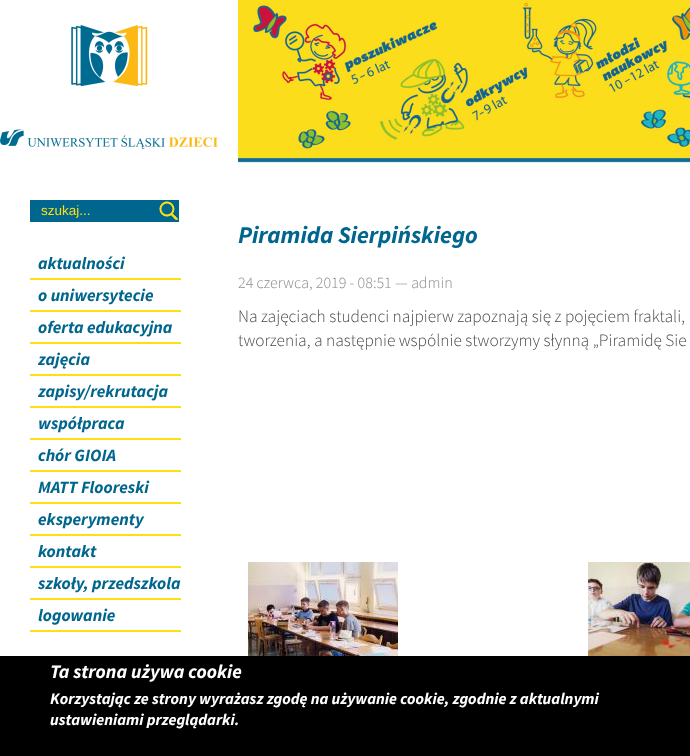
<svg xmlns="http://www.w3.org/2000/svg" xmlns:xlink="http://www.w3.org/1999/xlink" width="690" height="756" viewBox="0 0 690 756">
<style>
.cls-1{font:13.5px Liberation Sans;fill:#ffde17}
.cls-2{font:italic bold 17.3px Source Sans Pro;fill:#00668e}
.cls-3{font:italic bold 24px Source Sans Pro;fill:#00668e}
.cls-4{font:300 16px Source Sans Pro;fill:#898989}
.cls-5{font:300 17.3px Source Sans Pro;fill:#494949}
.cls-6{font:italic bold 19.25px Source Sans Pro;fill:#ffffff}
.cls-7{font:italic bold 16px Source Sans Pro;fill:#ffffff}
</style>
<rect width="100%" height="100%" fill="#ffffff"/>
<image xlink:href="image0.png" x="0" y="25" width="218" height="124"/>
<image xlink:href="image1.png" x="238" y="0" width="452" height="163"/>
<rect fill="#00668e" x="30" y="200" width="129" height="22"/>
<image xlink:href="image2.png" x="159" y="200" width="20" height="22"/>
<rect fill="#ffde16" x="30" y="278" width="151" height="2"/>
<rect fill="#ffde16" x="30" y="310" width="151" height="2"/>
<rect fill="#ffde16" x="30" y="342" width="151" height="2"/>
<rect fill="#ffde16" x="30" y="374" width="151" height="2"/>
<rect fill="#ffde16" x="30" y="406" width="151" height="2"/>
<rect fill="#ffde16" x="30" y="438" width="151" height="2"/>
<rect fill="#ffde16" x="30" y="470" width="151" height="2"/>
<rect fill="#ffde16" x="30" y="502" width="151" height="2"/>
<rect fill="#ffde16" x="30" y="534" width="151" height="2"/>
<rect fill="#ffde16" x="30" y="566" width="151" height="2"/>
<rect fill="#ffde16" x="30" y="598" width="151" height="2"/>
<rect fill="#ffde16" x="30" y="630" width="151" height="2"/>
<image xlink:href="image3.png" x="248" y="562" width="150" height="94"/>
<image xlink:href="image4.png" x="588" y="562" width="102" height="94"/>
<rect fill="#000000" x="0" y="656" width="690" height="100"/>
<text class="cls-1" x="41" y="215">szukaj...</text>
<text class="cls-2"><tspan x="38" y="269">aktualności</tspan><tspan x="38" y="301">o uniwersytecie</tspan><tspan x="38" y="333">oferta edukacyjna</tspan><tspan x="38" y="365">zajęcia</tspan><tspan x="38" y="397">zapisy/rekrutacja</tspan><tspan x="38" y="429">współpraca</tspan><tspan x="38" y="461">chór GIOIA</tspan><tspan x="38" y="493">MATT Flooreski</tspan><tspan x="38" y="525">eksperymenty</tspan><tspan x="38" y="557">kontakt</tspan><tspan x="38" y="589">szkoły, przedszkola</tspan><tspan x="38" y="621">logowanie</tspan></text>
<text class="cls-3" x="238" y="243">Piramida Sierpińskiego</text>
<text class="cls-4" x="238" y="288">24 czerwca, 2019 - 08:51 — admin</text>
<text class="cls-5"><tspan x="238" y="322">Na zajęciach studenci najpierw zapoznają się z pojęciem fraktali,</tspan><tspan x="238" y="346">tworzenia, a następnie wspólnie stworzymy słynną „Piramidę Sie</tspan></text>
<text class="cls-6" x="50" y="678">Ta strona używa cookie</text>
<text class="cls-7"><tspan x="50" y="704">Korzystając ze strony wyrażasz zgodę na używanie cookie, zgodnie z aktualnymi</tspan><tspan x="50" y="725">ustawieniami przeglądarki.</tspan></text>
</svg>
